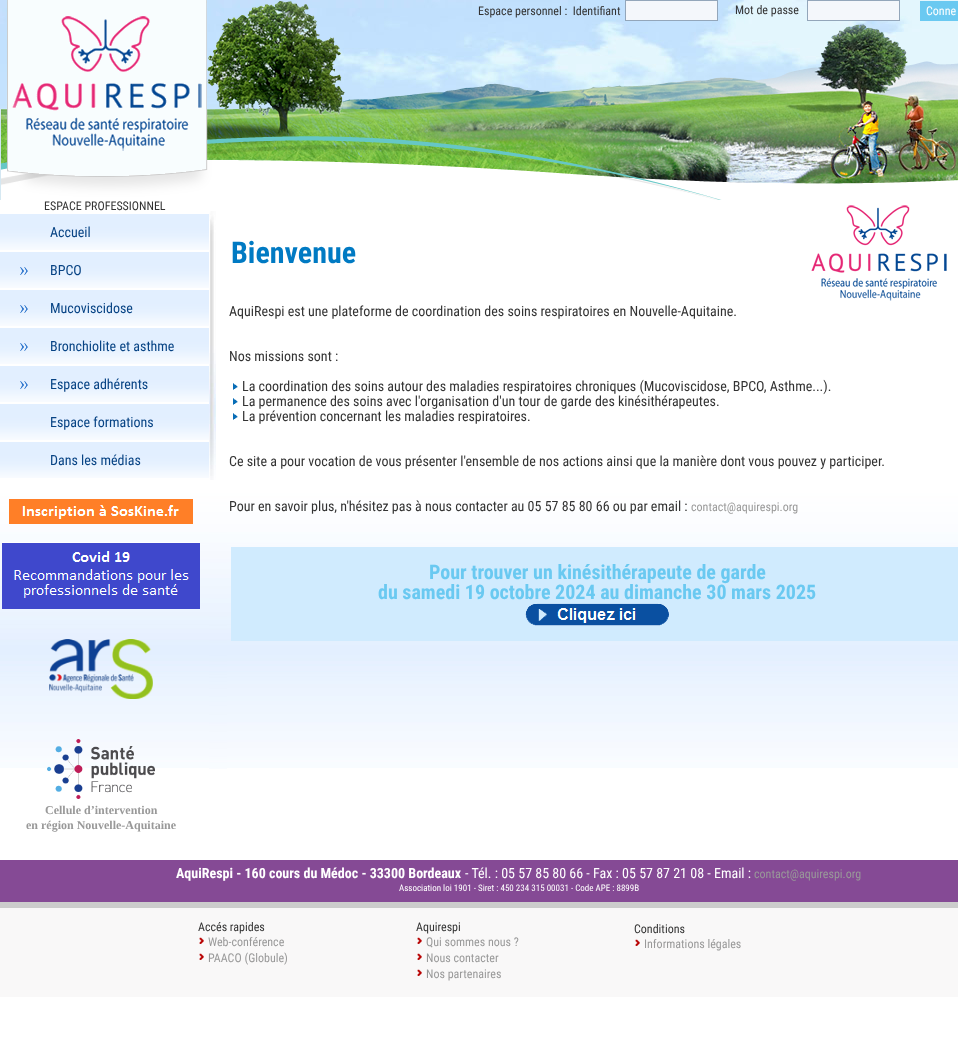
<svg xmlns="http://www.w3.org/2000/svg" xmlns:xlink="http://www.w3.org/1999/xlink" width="958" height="1064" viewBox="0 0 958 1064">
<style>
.cls-1{font:12px Roboto Condensed;fill:#333333}
.cls-2{font:12px Roboto Condensed;fill:#ffffff}
.cls-3{font:14px Roboto Condensed;fill:#074384}
.cls-4{font:bold 12px Liberation Serif;fill:#999999}
.cls-5{font:bold 30px Roboto Condensed;fill:#007ac3}
.cls-6{font:14px Roboto Condensed;fill:#333333}
.cls-7{font:12px Roboto Condensed;fill:#999999}
.cls-8{font:bold 20px Roboto Condensed;fill:#6ac9f1}
.cls-9{font:bold 14px Roboto Condensed;fill:#ffffff}
.cls-10{font:14px Roboto Condensed;fill:#ffffff}
.cls-11{font:9px Roboto Condensed;fill:#ffffff}
</style>
<rect width="100%" height="100%" fill="#ffffff"/>
<image xlink:href="image0.png" x="0" y="0" width="958" height="200"/>
<image xlink:href="image1.png" x="0" y="0" width="958" height="200"/>
<rect fill="#f4f7fb" stroke="#93a6ba" x="625.5" y="0.5" width="92" height="20"/>
<rect fill="#f4f7fb" stroke="#93a6ba" x="807.5" y="0.5" width="92" height="20"/>
<rect fill="#6ac9f1" x="920" y="1" width="38" height="20"/>
<image xlink:href="image2.png" x="0" y="200" width="209" height="568"/>
<image xlink:href="image3.png" x="0" y="214" width="209" height="36"/>
<image xlink:href="image3.png" x="0" y="252" width="209" height="36"/>
<image xlink:href="image4.png" x="20" y="267" width="8" height="8"/>
<image xlink:href="image3.png" x="0" y="290" width="209" height="36"/>
<image xlink:href="image4.png" x="20" y="305" width="8" height="8"/>
<image xlink:href="image3.png" x="0" y="328" width="209" height="36"/>
<image xlink:href="image4.png" x="20" y="343" width="8" height="8"/>
<image xlink:href="image3.png" x="0" y="366" width="209" height="36"/>
<image xlink:href="image4.png" x="20" y="381" width="8" height="8"/>
<image xlink:href="image3.png" x="0" y="404" width="209" height="36"/>
<image xlink:href="image3.png" x="0" y="442" width="209" height="36"/>
<image xlink:href="image5.png" x="9" y="499" width="184" height="25"/>
<image xlink:href="image6.png" x="2" y="542" width="198" height="67"/>
<image xlink:href="image7.png" x="49" y="639" width="104" height="60"/>
<image xlink:href="image8.png" x="47" y="739" width="108" height="60"/>
<image xlink:href="image9.png" x="209" y="200" width="18" height="569"/>
<image xlink:href="image10.png" x="209" y="211" width="7" height="269"/>
<image xlink:href="image11.png" x="227" y="200" width="731" height="568"/>
<image xlink:href="image12.png" x="811" y="205" width="136" height="96"/>
<image xlink:href="image13.png" x="233" y="383" width="5" height="7"/>
<image xlink:href="image13.png" x="233" y="398" width="5" height="7"/>
<image xlink:href="image13.png" x="233" y="413" width="5" height="7"/>
<rect fill="#d0ebfe" x="231" y="547" width="727" height="94"/>
<image xlink:href="image14.png" x="525" y="603" width="144" height="23"/>
<rect fill="#854a95" x="0" y="860" width="958" height="42"/>
<rect fill="#cccccc" x="0" y="902" width="958" height="6"/>
<rect fill="#f9f8f8" x="0" y="908" width="958" height="89"/>
<image xlink:href="image15.png" x="199" y="937" width="5" height="7"/>
<image xlink:href="image15.png" x="199" y="953" width="5" height="7"/>
<image xlink:href="image15.png" x="417" y="937" width="5" height="7"/>
<image xlink:href="image15.png" x="417" y="953" width="5" height="7"/>
<image xlink:href="image15.png" x="417" y="969" width="5" height="7"/>
<image xlink:href="image15.png" x="635" y="939" width="5" height="7"/>
<text class="cls-1" xml:space="preserve" x="478" y="15">Espace personnel :  Identifiant</text>
<text class="cls-1" x="735" y="14">Mot de passe</text>
<text class="cls-2" x="926" y="15">Conne</text>
<text class="cls-1" x="44" y="210">ESPACE PROFESSIONNEL</text>
<text class="cls-3" x="50" y="237">Accueil</text>
<text class="cls-3" x="50" y="275">BPCO</text>
<text class="cls-3" x="50" y="313">Mucoviscidose</text>
<text class="cls-3" x="50" y="351">Bronchiolite et asthme</text>
<text class="cls-3" x="50" y="389">Espace adhérents</text>
<text class="cls-3" x="50" y="427">Espace formations</text>
<text class="cls-3" x="50" y="465">Dans les médias</text>
<text class="cls-4" x="45" y="814">Cellule d’intervention</text>
<text class="cls-4" x="26" y="829">en région Nouvelle-Aquitaine</text>
<text class="cls-5" x="231" y="263">Bienvenue</text>
<text class="cls-6" x="229" y="316">AquiRespi est une plateforme de coordination des soins respiratoires en Nouvelle-Aquitaine.</text>
<text class="cls-6" x="229" y="361">Nos missions sont :</text>
<text class="cls-6"><tspan x="242" y="391">La coordination des soins autour des maladies respiratoires chroniques (Mucoviscidose, BPCO, Asthme...).</tspan><tspan x="242" y="406">La permanence des soins avec l'organisation d'un tour de garde des kinésithérapeutes.</tspan><tspan x="242" y="421">La prévention concernant les maladies respiratoires.</tspan></text>
<text class="cls-6" x="229" y="466">Ce site a pour vocation de vous présenter l'ensemble de nos actions ainsi que la manière dont vous pouvez y participer.</text>
<text class="cls-6" x="229" y="511">Pour en savoir plus, n'hésitez pas à nous contacter au 05 57 85 80 66 ou par email :</text>
<text class="cls-7" x="691" y="511">contact@aquirespi.org</text>
<text class="cls-8" x="429" y="579">Pour trouver un kinésithérapeute de garde</text>
<text class="cls-8" x="378" y="599">du samedi 19 octobre 2024 au dimanche 30 mars 2025</text>
<text class="cls-9" x="176" y="878">AquiRespi - 160 cours du Médoc - 33300 Bordeaux</text>
<text class="cls-10" x="465" y="878">- Tél. : 05 57 85 80 66 - Fax : 05 57 87 21 08 - Email :</text>
<text class="cls-7" x="754" y="878">contact@aquirespi.org</text>
<text class="cls-11" x="399" y="891">Association loi 1901 - Siret : 450 234 315 00031 - Code APE : 8899B</text>
<text class="cls-1" x="198" y="931">Accés rapides</text>
<text class="cls-7"><tspan x="208" y="946">Web-conférence</tspan><tspan x="208" y="962">PAACO (Globule)</tspan></text>
<text class="cls-1" x="416" y="931">Aquirespi</text>
<text class="cls-7"><tspan x="426" y="946">Qui sommes nous ?</tspan><tspan x="426" y="962">Nous contacter</tspan><tspan x="426" y="978">Nos partenaires</tspan></text>
<text class="cls-1" x="634" y="933">Conditions</text>
<text class="cls-7" x="644" y="948">Informations légales</text>
</svg>
